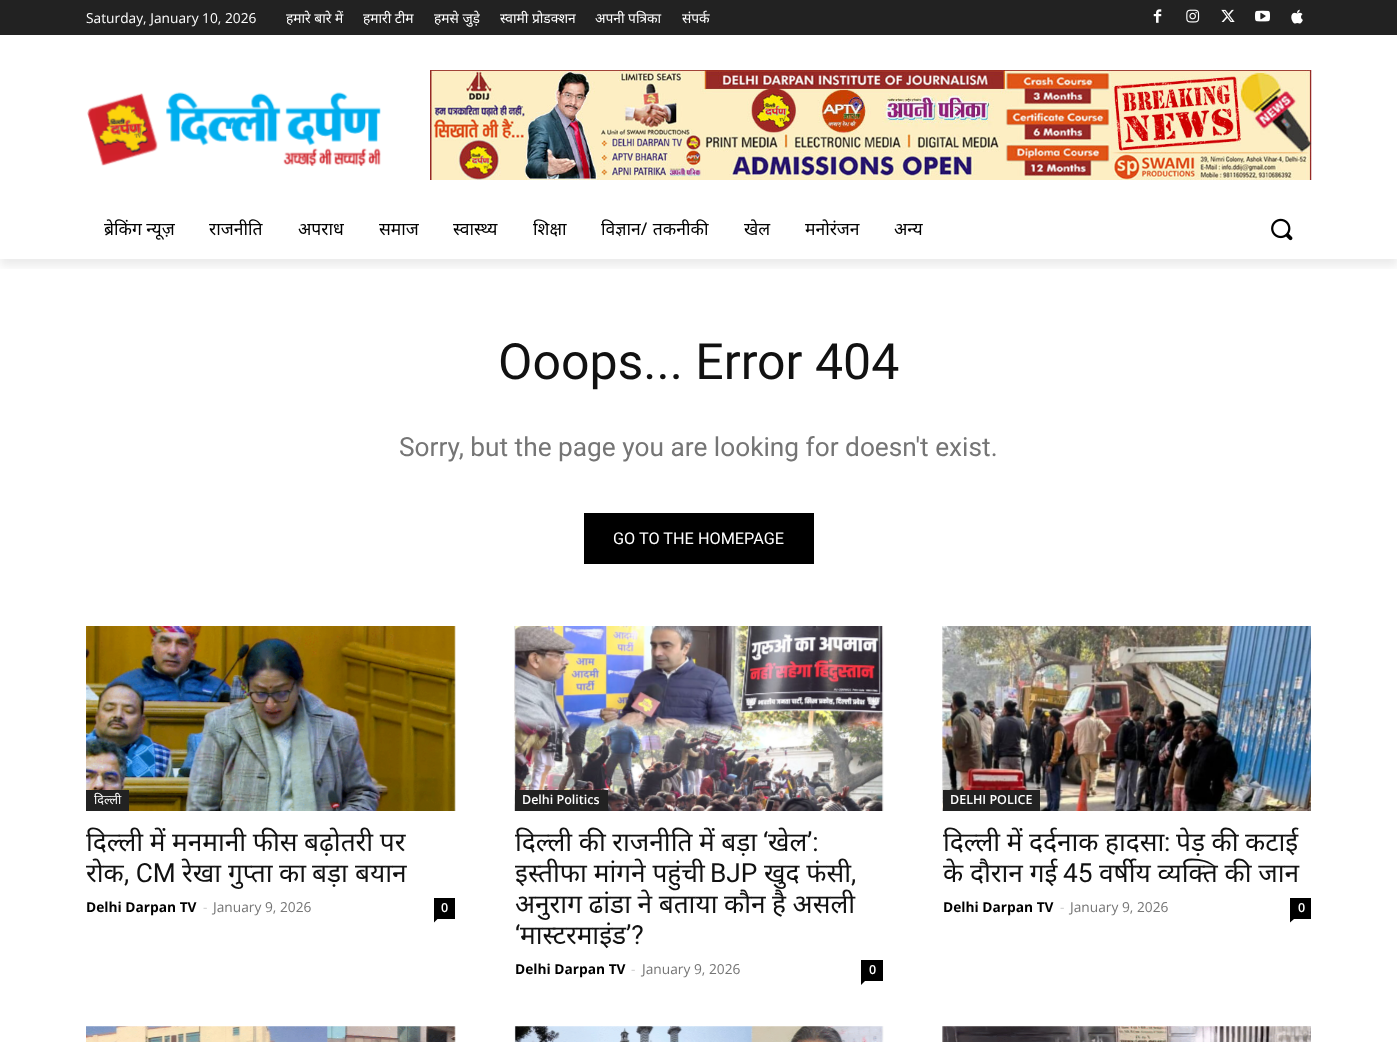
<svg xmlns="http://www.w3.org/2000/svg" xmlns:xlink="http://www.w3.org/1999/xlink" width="1397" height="1042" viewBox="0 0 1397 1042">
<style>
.cls-1{font:13.75px Open Sans;fill:#ffffff}
.cls-2{font:13.75px Noto Sans;fill:#ffffff}
.cls-3{font:17.5px Noto Sans;fill:#000000}
.cls-4{font:50px Roboto;fill:#111111}
.cls-5{font:26.25px Roboto;fill:#757575}
.cls-6{font:16.25px Roboto;fill:#ffffff}
.cls-7{font:12.5px Noto Sans;fill:#ffffff}
.cls-8{font:26.25px Noto Sans;fill:#111111}
.cls-9{font:26.25px Roboto;fill:#111111}
.cls-10{font:bold 13.75px Open Sans;fill:#000000}
.cls-11{font:13.75px Open Sans;fill:#cccccc}
.cls-12{font:13.75px Open Sans;fill:#757575}
.cls-13{font:600 12.5px Open Sans;fill:#ffffff}
</style>
<defs>
<clipPath id="clip1"><rect x="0" y="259" width="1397" height="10"/></clipPath>
</defs>
<rect width="100%" height="100%" fill="#ffffff"/>
<rect fill="#222222" x="0" y="0" width="1397" height="35"/>
<image xlink:href="image0.png" x="1153" y="9" width="9" height="14"/>
<image xlink:href="image1.png" x="1186" y="9" width="14" height="14"/>
<image xlink:href="image2.png" x="1221" y="9" width="14" height="13"/>
<image xlink:href="image3.png" x="1255" y="10" width="15" height="12"/>
<image xlink:href="image4.png" x="1291" y="9" width="12" height="15"/>
<image xlink:href="image5.png" x="87" y="92" width="294" height="75"/>
<image xlink:href="image6.png" x="430" y="70" width="882" height="110"/>
<g clip-path="url(#clip1)">
<rect fill="#000000" fill-opacity="0.08" filter="blur(5px)" x="0" y="8" width="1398" height="258"/>
</g>
<image xlink:href="image7.png" x="1271" y="218" width="22" height="23"/>
<rect fill="#000000" x="584" y="513" width="230" height="51"/>
<image xlink:href="image8.png" x="86" y="626" width="370" height="185"/>
<rect fill="#222222" x="86" y="790" width="43" height="21"/>
<rect fill="#000000" x="434" y="898" width="21" height="21"/>
<path fill="#000000" d="M434 919H437.5L434 922.5Z"/>
<image xlink:href="image9.png" x="514" y="626" width="370" height="185"/>
<rect fill="#222222" x="515" y="790" width="93" height="21"/>
<rect fill="#000000" x="861" y="960" width="22" height="21"/>
<path fill="#000000" d="M861 981H865L861 985Z"/>
<image xlink:href="image10.png" x="942" y="626" width="369" height="185"/>
<rect fill="#222222" x="943" y="790" width="97" height="21"/>
<rect fill="#000000" x="1290" y="898" width="21" height="21"/>
<path fill="#000000" d="M1290 919H1294L1290 922.5Z"/>
<image xlink:href="image11.png" x="86" y="1026" width="370" height="16"/>
<image xlink:href="image12.png" x="514" y="1026" width="370" height="16"/>
<image xlink:href="image13.png" x="942" y="1026" width="369" height="16"/>
<text class="cls-1" x="86" y="23">Saturday, January 10, 2026</text>
<text class="cls-2" x="286" y="23">हमारे बारे में</text>
<text class="cls-2" x="363" y="23">हमारी टीम</text>
<text class="cls-2" x="434" y="23">हमसे जुड़े</text>
<text class="cls-2" x="500" y="23">स्वामी प्रोडक्शन</text>
<text class="cls-2" x="595" y="23">अपनी पत्रिका</text>
<text class="cls-2" x="682" y="23">संपर्क</text>
<text class="cls-3" x="104" y="235">ब्रेकिंग न्यूज़</text>
<text class="cls-3" x="209" y="235">राजनीति</text>
<text class="cls-3" x="298" y="235">अपराध</text>
<text class="cls-3" x="379" y="235">समाज</text>
<text class="cls-3" x="453" y="235">स्वास्थ्य</text>
<text class="cls-3" x="533" y="235">शिक्षा</text>
<text class="cls-3" x="601" y="235" word-spacing="1">विज्ञान/ तकनीकी</text>
<text class="cls-3" x="744" y="235">खेल</text>
<text class="cls-3" x="805" y="235">मनोरंजन</text>
<text class="cls-3" x="894" y="235">अन्य</text>
<text class="cls-4" x="498" y="379">Ooops... Error 404</text>
<text class="cls-5" x="399" y="456">Sorry, but the page you are looking for doesn't exist.</text>
<text class="cls-6" x="613" y="544">GO TO THE HOMEPAGE</text>
<text class="cls-7" x="94" y="804">दिल्ली</text>
<text class="cls-8"><tspan x="86" y="851" word-spacing="-0.25">दिल्ली में मनमानी फीस बढ़ोतरी पर</tspan><tspan x="86" y="882">रोक</tspan></text>
<text class="cls-9" x="124" y="882">, CM</text>
<text class="cls-8" x="182" y="882">रेखा</text>
<text class="cls-8" x="228" y="882">गुप्ता</text>
<text class="cls-8" x="279" y="882">का</text>
<text class="cls-8" x="312" y="882">बड़ा</text>
<text class="cls-8" x="355" y="882">बयान</text>
<text class="cls-10" x="86" y="912">Delhi Darpan TV</text>
<text class="cls-11" x="203" y="912">-</text>
<text class="cls-12" x="213" y="912">January 9, 2026</text>
<text class="cls-13" x="441" y="912">0</text>
<text class="cls-13" x="522" y="804">Delhi Politics</text>
<text class="cls-8" x="515" y="851" word-spacing="-0.25">दिल्ली की राजनीति में बड़ा</text>
<text class="cls-9" x="763" y="851">‘</text>
<text class="cls-8" x="768" y="851">खेल</text>
<text class="cls-9" x="807" y="851">’:</text>
<text class="cls-8" x="515" y="882">इस्तीफा मांगने पहुंची</text>
<text class="cls-9" x="710" y="882">BJP</text>
<text class="cls-8" x="764" y="882">खुद फंसी</text>
<text class="cls-9" x="851" y="882">,</text>
<text class="cls-8" x="515" y="913" word-spacing="-0.25">अनुराग ढांडा ने बताया कौन है असली</text>
<text class="cls-9" x="515" y="944">‘</text>
<text class="cls-8" x="520" y="944">मास्टरमाइंड</text>
<text class="cls-9" x="626" y="944">’?</text>
<text class="cls-10" x="515" y="974">Delhi Darpan TV</text>
<text class="cls-11" x="631" y="974">-</text>
<text class="cls-12" x="642" y="974">January 9, 2026</text>
<text class="cls-13" x="869" y="974">0</text>
<text class="cls-13" x="950" y="804">DELHI POLICE</text>
<text class="cls-8" x="943" y="851" word-spacing="-0.25">दिल्ली में दर्दनाक हादसा</text>
<text class="cls-9" x="1164" y="851">:</text>
<text class="cls-8" x="1176" y="851" word-spacing="-0.25">पेड़ की कटाई</text>
<text class="cls-8" x="943" y="882">के दौरान गई</text>
<text class="cls-9" x="1063" y="882">45</text>
<text class="cls-8" x="1099" y="882">वर्षीय व्यक्ति की जान</text>
<text class="cls-10" x="943" y="912">Delhi Darpan TV</text>
<text class="cls-11" x="1060" y="912">-</text>
<text class="cls-12" x="1070" y="912">January 9, 2026</text>
<text class="cls-13" x="1298" y="912">0</text>
</svg>
